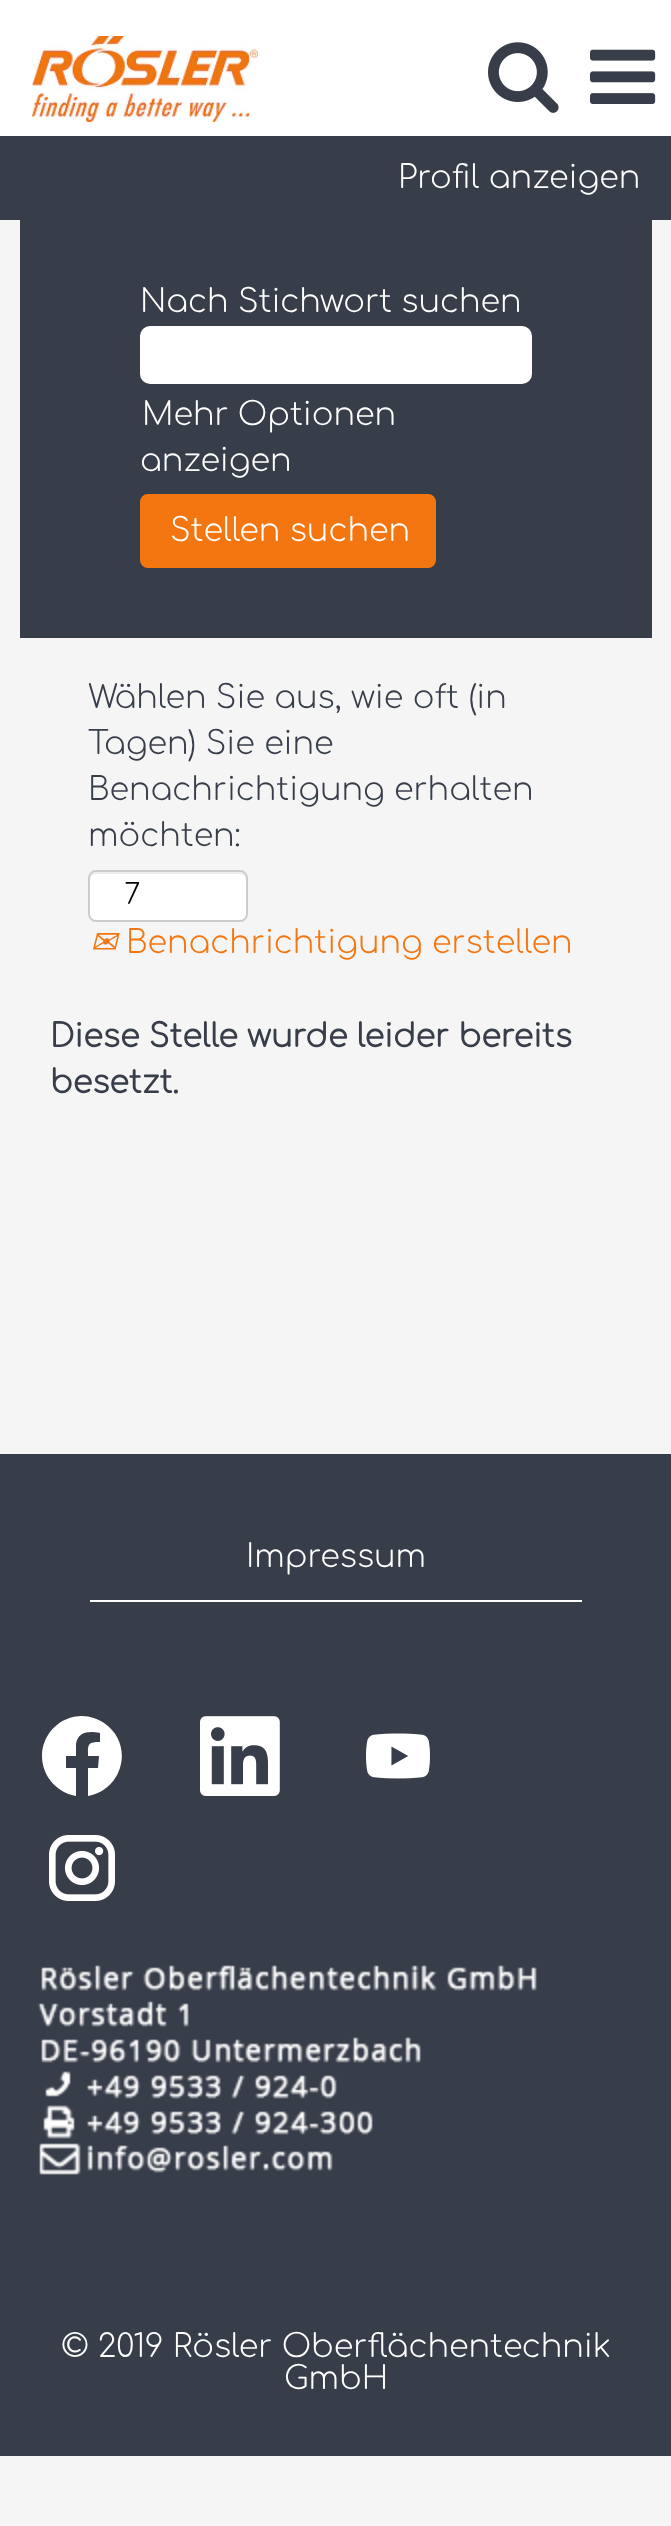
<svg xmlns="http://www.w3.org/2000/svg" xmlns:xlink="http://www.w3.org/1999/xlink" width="671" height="2526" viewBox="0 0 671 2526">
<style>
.cls-1{font:300 32px Comfortaa;fill:#ffffff}
.cls-2{font:300 32px Comfortaa;fill:#373d49}
.cls-3{font:300 28px Comfortaa;fill:#000000}
.cls-4{font:italic 32px DejaVu Sans;fill:#f47610}
.cls-5{font:300 32px Comfortaa;fill:#f47610}
.cls-6{font:bold 32px Comfortaa;fill:#373d49}
</style>
<rect width="100%" height="100%" fill="#f5f5f5"/>
<rect fill="#ffffff" x="0" y="0" width="671" height="136"/>
<image xlink:href="image0.png" x="32" y="36" width="226" height="86"/>
<image xlink:href="image1.png" x="488" y="42" width="71" height="71"/>
<image xlink:href="image2.png" x="590" y="49" width="66" height="55"/>
<rect fill="#373d49" x="0" y="136" width="671" height="84"/>
<rect fill="#373d49" x="20" y="220" width="632" height="418"/>
<rect fill="#ffffff" stroke="#ffffff" stroke-width="4" x="142" y="328" width="388" height="54" rx="8"/>
<rect fill="#f47610" stroke="#f47610" stroke-width="2" x="141" y="495" width="294" height="72" rx="7"/>
<rect fill="#ffffff" x="88" y="870" width="160" height="52" rx="8"/>
<path fill="#ececec" d="M96 874H240C243 874 246 877 246 880V878C246 875 243 872 240 872H96C93 872 90 875 90 878V880C90 877 93 874 96 874Z"/>
<rect fill="none" stroke="#cccccc" stroke-width="2" x="89" y="871" width="158" height="50" rx="7"/>
<rect fill="#373d49" x="0" y="1454" width="671" height="1002"/>
<rect fill="#ffffff" x="90" y="1600" width="492" height="2"/>
<path fill="#ffffff" d="M82 1716C60 1716 42 1734 42 1756C42 1776 57 1793 76 1796V1768H66V1756H76V1744C78 1731 90 1731 100 1733V1742C87 1742 88 1745 88 1756H99L98 1768H88V1796C123 1790 135 1744 104 1723C98 1719 90 1716 82 1716Z"/>
<image xlink:href="image3.png" x="200" y="1716" width="80" height="80"/>
<image xlink:href="image4.png" x="366" y="1733" width="64" height="46"/>
<image xlink:href="image5.png" x="49" y="1835" width="66" height="66"/>
<image xlink:href="image6.png" x="37" y="1965" width="500" height="210"/>
<text class="cls-1" x="398" y="188">Profil anzeigen</text>
<text class="cls-1" x="140" y="312">Nach Stichwort suchen</text>
<text class="cls-1" x="142" y="425">Mehr Optionen</text>
<text class="cls-1" x="140" y="471">anzeigen</text>
<text class="cls-1" x="170" y="541">Stellen suchen</text>
<text class="cls-2"><tspan x="88" y="708">Wählen Sie aus, wie oft (in</tspan><tspan x="88" y="754">Tagen) Sie eine</tspan><tspan x="88" y="800">Benachrichtigung erhalten</tspan><tspan x="88" y="846">möchten:</tspan></text>
<text class="cls-3" x="124" y="904">7</text>
<text class="cls-4" x="90" y="953">✉</text>
<text class="cls-5" x="126" y="953">Benachrichtigung erstellen</text>
<text class="cls-6"><tspan x="50" y="1047">Diese Stelle wurde leider bereits</tspan><tspan x="50" y="1093">besetzt.</tspan></text>
<text class="cls-1" x="246" y="1567">Impressum</text>
<text class="cls-1" x="61" y="2357">© 2019 Rösler Oberflächentechnik</text>
<text class="cls-1" x="284" y="2389">GmbH</text>
</svg>
